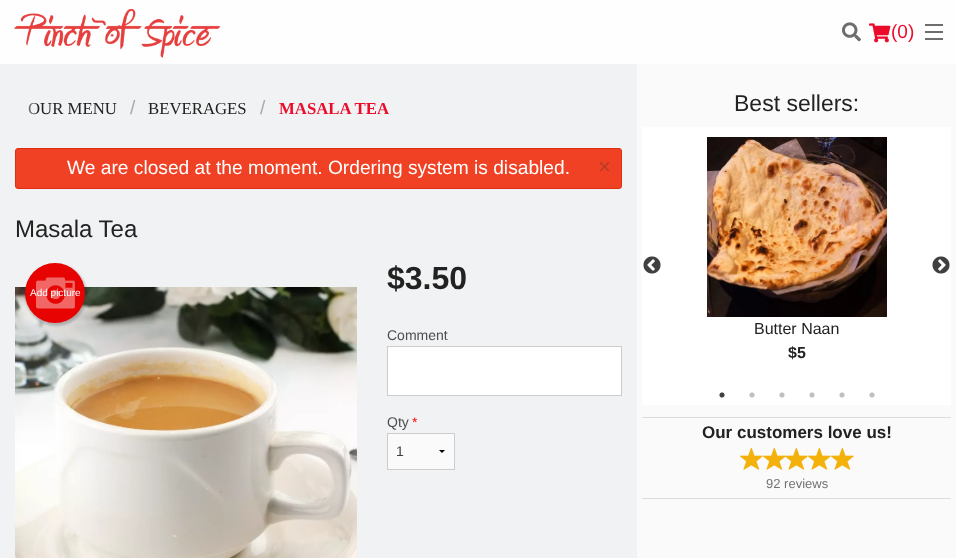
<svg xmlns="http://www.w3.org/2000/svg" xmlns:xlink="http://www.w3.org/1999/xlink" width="956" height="558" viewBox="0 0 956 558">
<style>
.cls-1{font:19px Liberation Sans;fill:#eb0c2b}
.cls-2{font:16.75px Liberation Serif;fill:#222222}
.cls-3{font:19.2px Liberation Sans;fill:#aaaaaa}
.cls-4{font:bold 16.75px Liberation Serif;fill:#eb0c2b}
.cls-5{font:19.2px Liberation Sans;fill:#ffffff}
.cls-6{font:22px Liberation Sans;fill:#b73d29}
.cls-7{font:24px Liberation Sans;fill:#222222}
.cls-8{font:10px Liberation Sans;fill:#ffffff}
.cls-9{font:bold 32px Liberation Sans;fill:#222222}
.cls-10{font:14px Liberation Sans;fill:#4d4d4d}
.cls-11{font:14px Liberation Sans;fill:#ff0000}
.cls-12{font:14px Liberation Sans;fill:#3f3f3f}
.cls-13{font:23px Liberation Sans;fill:#222222}
.cls-14{font:16px Liberation Sans;fill:#222222}
.cls-15{font:bold 16px Liberation Sans;fill:#222222}
.cls-16{font:bold 17px Liberation Sans;fill:#222222}
.cls-17{font:13px Liberation Sans;fill:#737373}
</style>
<defs>
<linearGradient id="g1" gradientUnits="userSpaceOnUse" x1="35" y1="104" x2="0" y2="104"><stop offset="0" stop-color="#f1f2f3" stop-opacity="0"/><stop offset="0.43" stop-color="#f1f2f3"/><stop offset="1" stop-color="#f1f2f3"/></linearGradient>
</defs>
<rect width="100%" height="100%" fill="#f1f2f3"/>
<rect fill="#fefefe" x="0" y="0" width="956" height="64"/>
<image xlink:href="image0.png" x="14" y="9" width="206" height="49"/>
<image xlink:href="image1.png" x="842" y="22" width="19" height="20"/>
<image xlink:href="image2.png" x="869" y="23" width="22" height="20"/>
<rect fill="#6d6d6d" x="925" y="38" width="18" height="2"/>
<rect fill="#6d6d6d" x="925" y="31" width="18" height="2"/>
<rect fill="#6d6d6d" x="925" y="24" width="18" height="2"/>
<rect fill="#f04124" stroke="#de2d0f" x="15.5" y="148.5" width="606" height="40" rx="2.5"/>
<image xlink:href="image3.png" x="15" y="287" width="342" height="271"/>
<rect fill="#000000" fill-opacity="0.2" filter="blur(1px)" x="25" y="264" width="62" height="62" rx="31"/>
<circle fill="#e60301" cx="55" cy="293" r="30"/>
<image xlink:href="image4.png" x="36" y="277" width="39" height="32"/>
<rect fill="#ffffff" stroke="#cccccc" x="387.5" y="346.5" width="234" height="49"/>
<rect fill="#fafafa" x="388" y="434" width="66" height="35"/>
<path fill="#000000" d="M445 450L442 453L439 450Z"/>
<rect fill="none" stroke="#cccccc" x="387.5" y="433.5" width="67" height="36"/>
<rect fill="#fafafa" x="637" y="64" width="319" height="494"/>
<rect fill="#ffffff" x="642" y="127" width="309" height="278"/>
<image xlink:href="image5.png" x="643" y="256" width="18" height="18"/>
<image xlink:href="image6.png" x="932" y="256" width="18" height="18"/>
<image xlink:href="image7.png" x="707" y="137" width="180" height="180"/>
<image xlink:href="image8.png" x="719" y="392" width="6" height="6"/>
<image xlink:href="image9.png" x="749" y="392" width="6" height="6"/>
<image xlink:href="image9.png" x="779" y="392" width="6" height="6"/>
<image xlink:href="image9.png" x="809" y="392" width="6" height="6"/>
<image xlink:href="image9.png" x="839" y="392" width="6" height="6"/>
<image xlink:href="image9.png" x="869" y="392" width="6" height="6"/>
<rect fill="#dddddd" x="642" y="417" width="309" height="1"/>
<image xlink:href="image10.png" x="740" y="447" width="23" height="23"/>
<image xlink:href="image10.png" x="763" y="447" width="23" height="23"/>
<image xlink:href="image11.png" x="785" y="447" width="23" height="23"/>
<image xlink:href="image10.png" x="808" y="447" width="23" height="23"/>
<image xlink:href="image10.png" x="831" y="447" width="23" height="23"/>
<rect fill="#dddddd" x="642" y="498" width="309" height="1"/>
<text class="cls-1" x="891" y="38">(0)</text>
<text class="cls-2" x="28" y="114">OUR MENU</text>
<text class="cls-3" x="130" y="114">/</text>
<text class="cls-2" x="148" y="114">BEVERAGES</text>
<text class="cls-3" x="260" y="114">/</text>
<text class="cls-4" x="279" y="114">MASALA TEA</text>
<rect fill="url(#g1)" x="28" y="103" width="7" height="12"/>
<text class="cls-5" x="67" y="174">We are closed at the moment. Ordering system is disabled.</text>
<text class="cls-6" x="598" y="174">×</text>
<text class="cls-7" x="15" y="237">Masala Tea</text>
<text class="cls-8" x="30" y="296">Add picture</text>
<text class="cls-9" x="387" y="289">$3.50</text>
<text class="cls-10" x="387" y="340">Comment</text>
<text class="cls-10" x="387" y="427">Qty</text>
<text class="cls-11" x="412" y="427">*</text>
<text class="cls-12" x="396" y="456">1</text>
<text class="cls-13" x="734" y="111">Best sellers:</text>
<text class="cls-14" x="754" y="334">Butter Naan</text>
<text class="cls-15" x="788" y="358">$5</text>
<text class="cls-16" x="702" y="438">Our customers love us!</text>
<text class="cls-17" x="766" y="488">92 reviews</text>
</svg>
